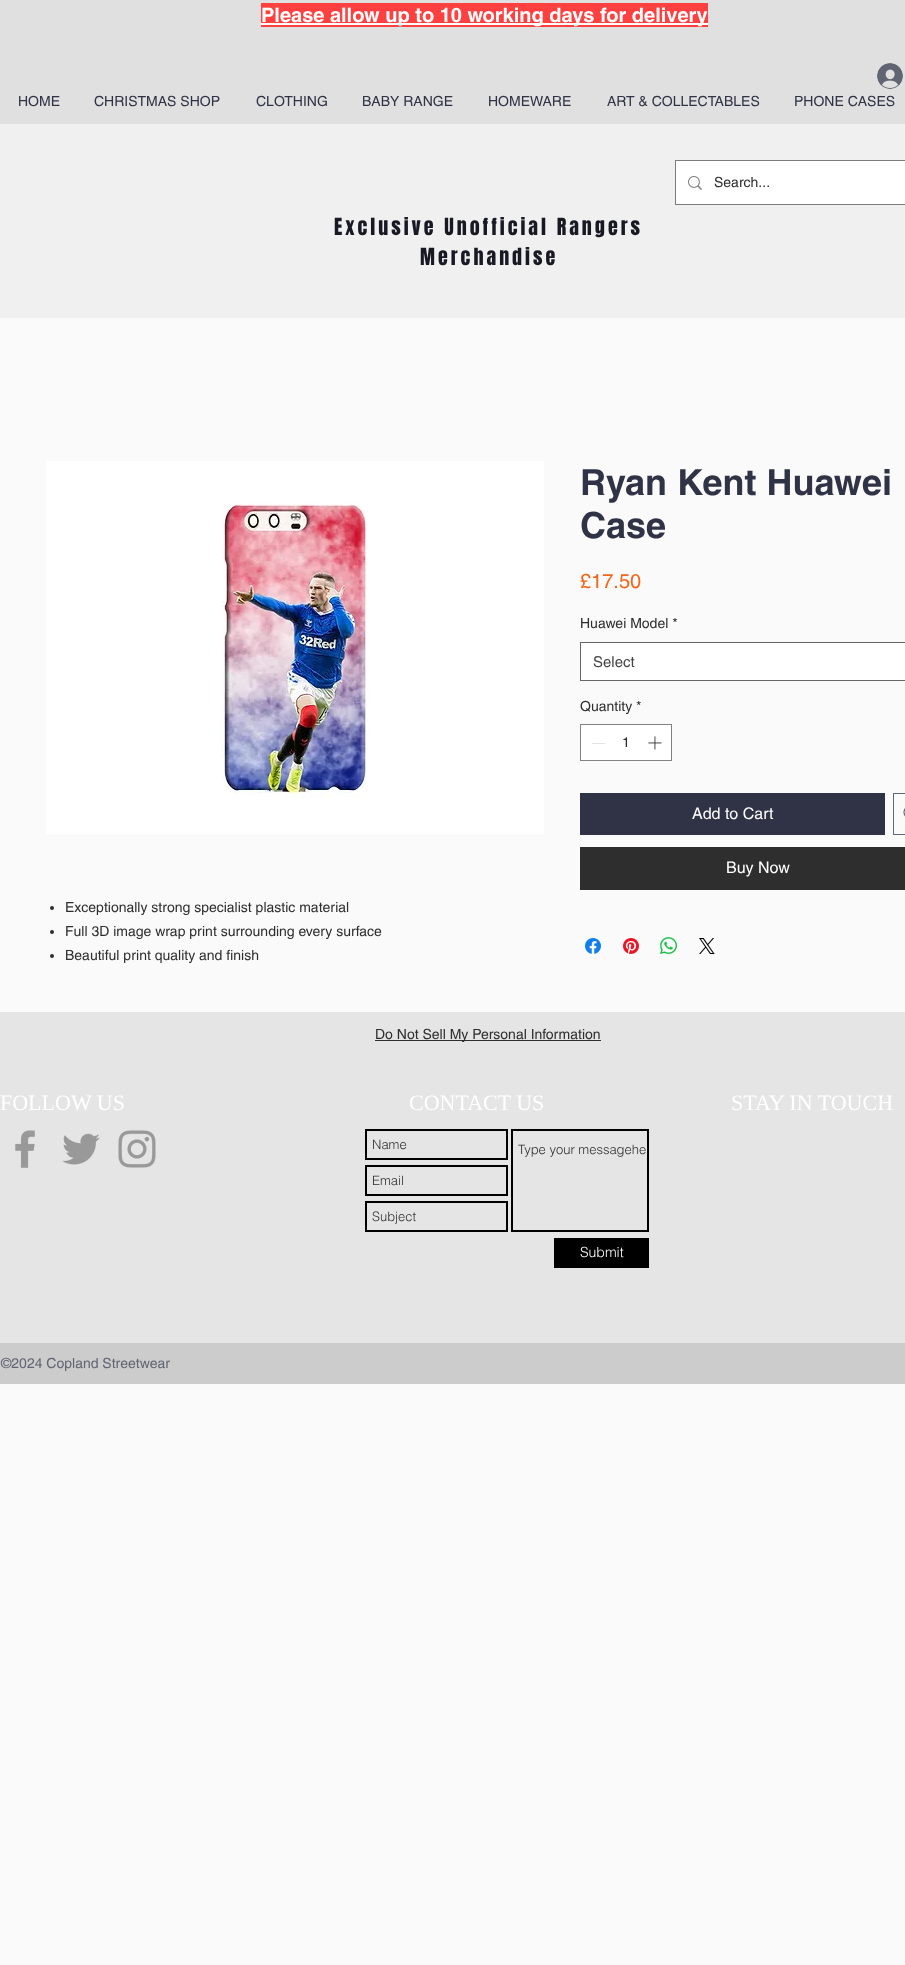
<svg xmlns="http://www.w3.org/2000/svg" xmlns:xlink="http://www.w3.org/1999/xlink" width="905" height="1965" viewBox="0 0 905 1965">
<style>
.cls-1{font:bold 20px helvetica;fill:#ffffff}
.cls-2{font:14px helvetica;fill:#2f3345}
.cls-3{font:14px helvetica;fill:#2f2e2e}
.cls-4{font:20px Anton;letter-spacing:3px;fill:#181923}
.cls-5{font:bold 36px helvetica;fill:#2f3345}
.cls-6{font:20px helvetica;fill:#f56618}
.cls-7{font:15px helvetica;fill:#444444}
.cls-8{font:16px helvetica;fill:#ffffff}
.cls-9{font:22px Liberation Serif;fill:#ffffff}
.cls-10{font:300 13px helvetica;fill:#2f2e2e}
.cls-11{font:300 14px helvetica;fill:#ffffff}
.cls-12{font:14px helvetica;fill:#616473}
</style>
<rect width="100%" height="100%" fill="#fafafa"/>
<rect fill="#e0e0e0" x="0" y="0" width="905" height="124"/>
<rect fill="#ff4040" x="261" y="3" width="447" height="24"/>
<rect fill="#ffffff" x="261" y="23" width="447" height="2"/>
<image xlink:href="image0.png" x="877" y="63" width="26" height="26"/>
<rect fill="#f0f0f0" x="0" y="124" width="905" height="194"/>
<rect fill="none" stroke="#7c7c7c" x="675.5" y="160.5" width="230" height="44"/>
<rect fill="#ffffff" x="676" y="161" width="229" height="43"/>
<image xlink:href="image1.png" x="688" y="176" width="14" height="14"/>
<rect fill="#ffffff" stroke="#666666" x="580.5" y="642.5" width="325" height="38"/>
<rect fill="#ffffff" stroke="#828282" x="580.5" y="724.5" width="91" height="36"/>
<rect fill="#e3e3e3" x="592" y="743" width="13" height="1"/>
<image xlink:href="image2.png" x="648" y="736" width="14" height="14"/>
<rect fill="#2f3345" x="580" y="793" width="305" height="42"/>
<rect fill="none" stroke="#616473" x="893.5" y="793.5" width="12" height="41"/>
<image xlink:href="image3.png" x="903" y="808" width="2" height="9"/>
<rect fill="#2f2e2e" x="580" y="847" width="325" height="43"/>
<image xlink:href="image4.png" x="585" y="938" width="16" height="16"/>
<image xlink:href="image5.png" x="623" y="938" width="16" height="16"/>
<image xlink:href="image6.png" x="660" y="937" width="17" height="17"/>
<image xlink:href="image7.png" x="699" y="938" width="16" height="16"/>
<image xlink:href="image8.png" x="46" y="461" width="498" height="373"/>
<circle fill="#2f2e2e" cx="52" cy="908" r="2"/>
<circle fill="#2f2e2e" cx="52" cy="932" r="2"/>
<circle fill="#2f2e2e" cx="52" cy="956" r="2"/>
<rect fill="#e5e5e5" x="0" y="1012" width="905" height="331"/>
<rect fill="#2f2e2e" x="375" y="1040" width="226" height="1"/>
<image xlink:href="image9.png" x="15" y="1130" width="20" height="38"/>
<image xlink:href="image10.png" x="62" y="1133" width="38" height="32"/>
<image xlink:href="image11.png" x="118" y="1130" width="38" height="38"/>
<rect fill="none" stroke="#000000" stroke-width="2" x="366" y="1130" width="141" height="29"/>
<rect fill="none" stroke="#000000" stroke-width="2" x="512" y="1130" width="136" height="101"/>
<rect fill="none" stroke="#000000" stroke-width="2" x="366" y="1166" width="141" height="29"/>
<rect fill="none" stroke="#000000" stroke-width="2" x="366" y="1202" width="141" height="29"/>
<rect fill="#000000" x="554" y="1238" width="95" height="30"/>
<rect fill="#cccccc" x="0" y="1343" width="905" height="41"/>
<text class="cls-1" x="261" y="22">Please allow up to 10 working days for delivery</text>
<text class="cls-2" x="18" y="106">HOME</text>
<text class="cls-2" x="94" y="106">CHRISTMAS SHOP</text>
<text class="cls-2" x="256" y="106">CLOTHING</text>
<text class="cls-2" x="362" y="106">BABY RANGE</text>
<text class="cls-2" x="488" y="106">HOMEWARE</text>
<text class="cls-2" x="607" y="106">ART &amp; COLLECTABLES</text>
<text class="cls-2" x="794" y="106">PHONE CASES</text>
<text class="cls-3" x="714" y="187">Search...</text>
<text class="cls-4" x="334" y="235">Exclusive Unofficial Rangers</text>
<text class="cls-4" x="420" y="265">Merchandise</text>
<text class="cls-5"><tspan x="580" y="495">Ryan Kent Huawei</tspan><tspan x="580" y="538">Case</tspan></text>
<text class="cls-6" x="580" y="588">£17.50</text>
<text class="cls-3" x="580" y="628">Huawei Model *</text>
<text class="cls-7" x="593" y="667">Select</text>
<text class="cls-3" x="580" y="711">Quantity *</text>
<text class="cls-3" x="622" y="747">1</text>
<text class="cls-8" x="692" y="819">Add to Cart</text>
<text class="cls-8" x="726" y="873">Buy Now</text>
<text class="cls-3"><tspan x="65" y="912">Exceptionally strong specialist plastic material</tspan><tspan x="65" y="936">Full 3D image wrap print surrounding every surface</tspan><tspan x="65" y="960">Beautiful print quality and finish</tspan></text>
<text class="cls-3" x="375" y="1039">Do Not Sell My Personal Information</text>
<text class="cls-9" x="0" y="1110">FOLLOW US</text>
<text class="cls-9" x="409" y="1110">CONTACT US</text>
<text class="cls-9" x="731" y="1110">STAY IN TOUCH</text>
<text class="cls-10" x="372" y="1149">Name</text>
<text class="cls-10" x="518" y="1154">Type your messagehe</text>
<text class="cls-10" x="372" y="1185">Email</text>
<text class="cls-10" x="372" y="1221">Subject</text>
<text class="cls-11" x="580" y="1257">Submit</text>
<text class="cls-12" x="1" y="1368">©2024 Copland Streetwear</text>
</svg>
